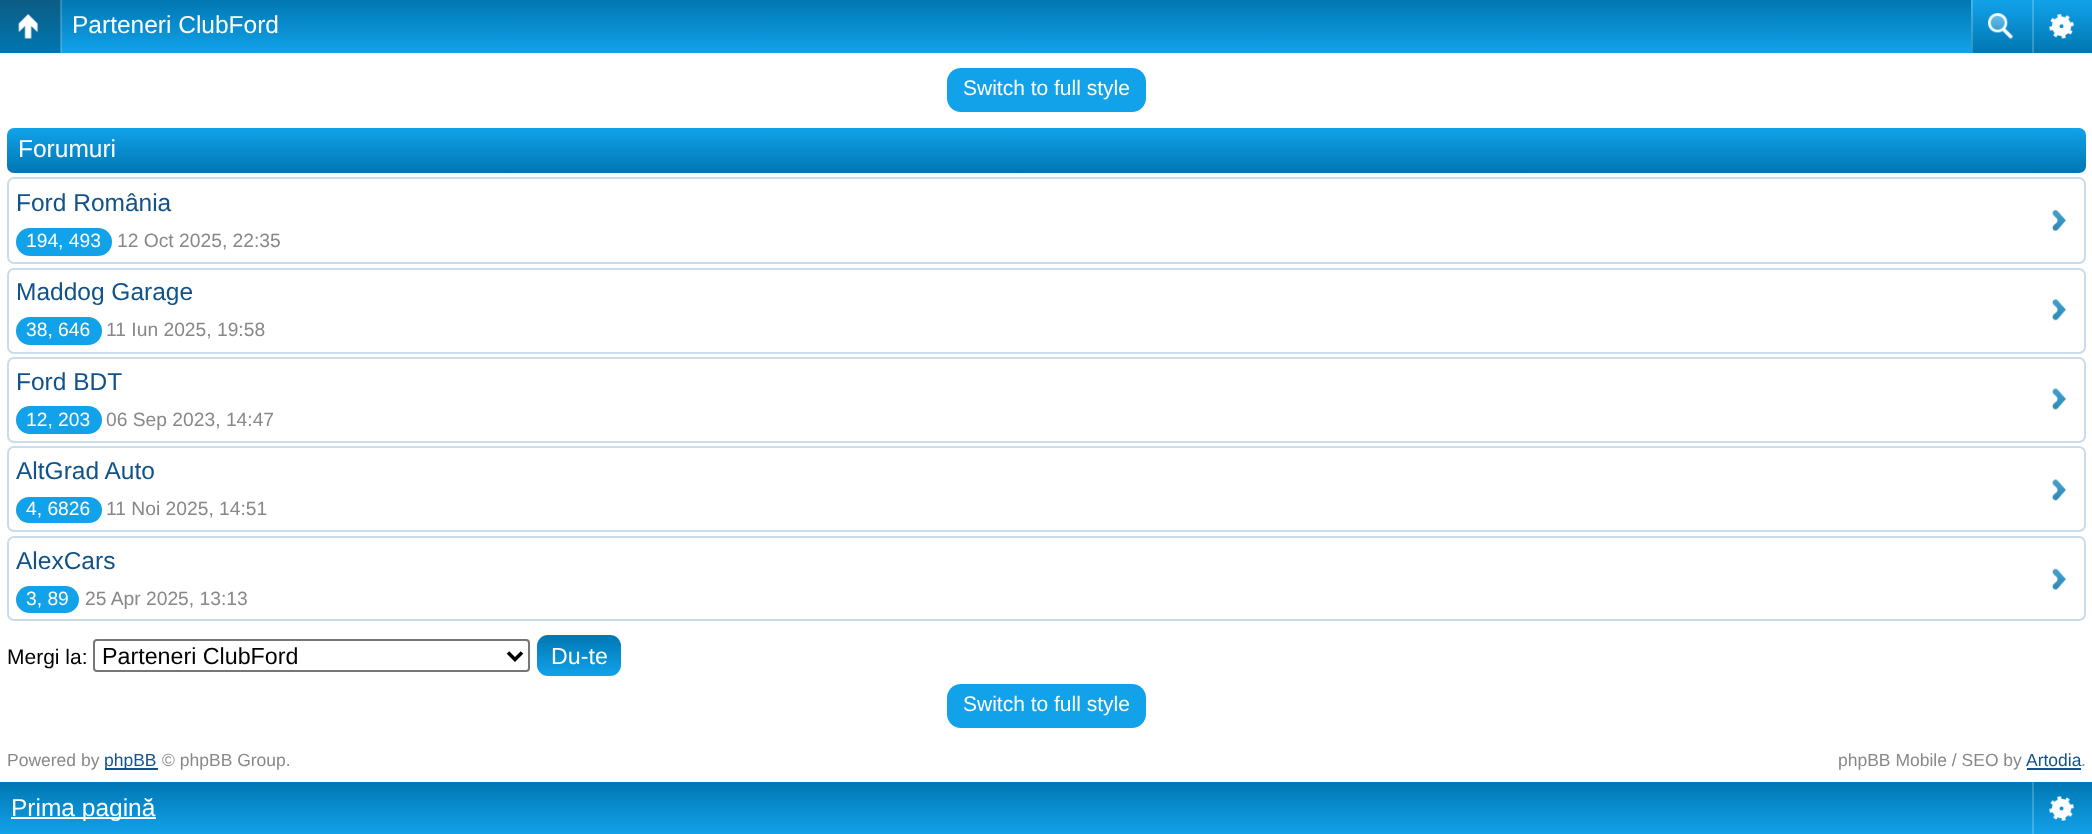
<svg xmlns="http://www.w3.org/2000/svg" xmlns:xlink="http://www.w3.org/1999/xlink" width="2092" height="834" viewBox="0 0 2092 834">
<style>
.cls-1{font:24.5px Liberation Sans;fill:#ffffff}
.cls-2{font:21px Liberation Sans;fill:#ffffff}
.cls-3{font:24.5px Liberation Sans;fill:#105289}
.cls-4{font:19.25px Liberation Sans;fill:#ffffff}
.cls-5{font:19.25px Liberation Sans;fill:#888888}
.cls-6{font:21px Liberation Sans;fill:#000000}
.cls-7{font:23.25px Liberation Sans;fill:#000000}
.cls-8{font:23.25px Liberation Sans;fill:#ffffff}
.cls-9{font:17.5px Liberation Sans;fill:#888888}
.cls-10{font:17.5px Liberation Sans;fill:#105289}
</style>
<defs>
<linearGradient id="g1" gradientUnits="userSpaceOnUse" x1="1047" y1="0" x2="1047" y2="53"><stop offset="0" stop-color="#0077b2"/><stop offset="1" stop-color="#12a2ea"/></linearGradient>
<linearGradient id="g2" gradientUnits="userSpaceOnUse" x1="1047" y1="0" x2="1047" y2="53"><stop offset="0" stop-color="#3392c1"/><stop offset="1" stop-color="#41b5ee"/></linearGradient>
<linearGradient id="g3" gradientUnits="userSpaceOnUse" x1="31" y1="0" x2="31" y2="53"><stop offset="0" stop-color="#0b5c84"/><stop offset="1" stop-color="#0077b2"/></linearGradient>
<linearGradient id="g4" gradientUnits="userSpaceOnUse" x1="31" y1="0" x2="31" y2="53"><stop offset="0" stop-color="#3c7d9d"/><stop offset="1" stop-color="#3392c1"/></linearGradient>
<linearGradient id="g5" gradientUnits="userSpaceOnUse" x1="2001" y1="0" x2="2001" y2="53"><stop offset="0" stop-color="#12a2ea"/><stop offset="1" stop-color="#0076b1"/></linearGradient>
<linearGradient id="g6" gradientUnits="userSpaceOnUse" x1="2001" y1="0" x2="2001" y2="53"><stop offset="0" stop-color="#41b5ee"/><stop offset="1" stop-color="#3391c1"/></linearGradient>
<linearGradient id="g7" gradientUnits="userSpaceOnUse" x1="2062" y1="0" x2="2062" y2="53"><stop offset="0" stop-color="#12a2ea"/><stop offset="1" stop-color="#0076b1"/></linearGradient>
<linearGradient id="g8" gradientUnits="userSpaceOnUse" x1="2062" y1="0" x2="2062" y2="53"><stop offset="0" stop-color="#41b5ee"/><stop offset="1" stop-color="#3391c1"/></linearGradient>
<linearGradient id="g9" gradientUnits="userSpaceOnUse" x1="1047" y1="128" x2="1047" y2="173"><stop offset="0" stop-color="#12a2ea"/><stop offset="1" stop-color="#0076b1"/></linearGradient>
<linearGradient id="g10" gradientUnits="userSpaceOnUse" x1="579" y1="635" x2="579" y2="676"><stop offset="0" stop-color="#0077b2"/><stop offset="1" stop-color="#12a2ea"/></linearGradient>
<linearGradient id="g11" gradientUnits="userSpaceOnUse" x1="1047" y1="782" x2="1047" y2="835"><stop offset="0" stop-color="#0077b2"/><stop offset="1" stop-color="#12a2ea"/></linearGradient>
<linearGradient id="g12" gradientUnits="userSpaceOnUse" x1="1047" y1="782" x2="1047" y2="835"><stop offset="0" stop-color="#3392c1"/><stop offset="1" stop-color="#41b5ee"/></linearGradient>
</defs>
<rect width="100%" height="100%" fill="#ffffff"/>
<rect fill="url(#g1)" x="62" y="0" width="1909" height="53"/>
<rect fill="url(#g2)" x="61" y="0" width="1" height="53"/>
<rect fill="url(#g3)" x="0" y="0" width="60" height="53"/>
<rect fill="url(#g4)" x="60" y="0" width="1" height="53"/>
<image xlink:href="image0.png" x="18" y="14" width="20" height="25"/>
<rect fill="url(#g5)" x="1973" y="0" width="59" height="53"/>
<rect fill="url(#g6)" x="1971" y="0" width="2" height="53"/>
<image xlink:href="image1.png" x="1988" y="13" width="25" height="26"/>
<rect fill="url(#g7)" x="2034" y="0" width="58" height="53"/>
<rect fill="url(#g8)" x="2032" y="0" width="2" height="53"/>
<image xlink:href="image2.png" x="2049" y="14" width="25" height="25"/>
<rect fill="#12a2ea" x="947" y="68" width="199" height="44" rx="14"/>
<rect fill="url(#g9)" x="7" y="128" width="2079" height="45" rx="7"/>
<rect fill="none" stroke="#cadceb" stroke-width="2" x="8" y="178" width="2077" height="85" rx="6"/>
<image xlink:href="image3.png" x="2052" y="210" width="14" height="21"/>
<rect fill="#12a2ea" x="16" y="228" width="96" height="28" rx="14"/>
<rect fill="none" stroke="#cadceb" stroke-width="2" x="8" y="269" width="2077" height="84" rx="6"/>
<image xlink:href="image4.png" x="2052" y="299" width="14" height="22"/>
<rect fill="#12a2ea" x="16" y="317" width="86" height="28" rx="14"/>
<rect fill="none" stroke="#cadceb" stroke-width="2" x="8" y="358" width="2077" height="84" rx="6"/>
<image xlink:href="image5.png" x="2052" y="388" width="14" height="22"/>
<rect fill="#12a2ea" x="16" y="406" width="86" height="28" rx="14"/>
<rect fill="none" stroke="#cadceb" stroke-width="2" x="8" y="447" width="2077" height="84" rx="6"/>
<image xlink:href="image5.png" x="2052" y="479" width="14" height="22"/>
<rect fill="#12a2ea" x="16" y="497" width="86" height="26" rx="13"/>
<rect fill="none" stroke="#cadceb" stroke-width="2" x="8" y="537" width="2077" height="83" rx="6"/>
<image xlink:href="image6.png" x="2052" y="568" width="14" height="22"/>
<rect fill="#12a2ea" x="16" y="586" width="63" height="27" rx="13.5"/>
<rect fill="none" stroke="#767676" stroke-width="2" x="94" y="640" width="435" height="31" rx="3"/>
<path fill="none" stroke="#000000" stroke-width="3.5" d="M508 652.5L515 659.5L522 652.5"/>
<rect fill="url(#g10)" x="537" y="635" width="84" height="41" rx="11"/>
<rect fill="#12a2ea" x="947" y="684" width="199" height="44" rx="14"/>
<rect fill="#105289" x="105" y="768" width="53" height="2"/>
<rect fill="#105289" x="2027" y="768" width="54" height="2"/>
<rect fill="url(#g11)" x="0" y="782" width="2092" height="52"/>
<rect fill="url(#g12)" x="2032" y="782" width="2" height="52"/>
<rect fill="#ffffff" x="11" y="817" width="145" height="2"/>
<image xlink:href="image7.png" x="2049" y="796" width="25" height="25"/>
<text class="cls-1" x="72" y="33">Parteneri ClubFord</text>
<text class="cls-2" x="963" y="95">Switch to full style</text>
<text class="cls-1" x="18" y="157">Forumuri</text>
<text class="cls-3" x="16" y="211">Ford România</text>
<text class="cls-4" x="26" y="247">194, 493</text>
<text class="cls-5" x="117" y="247">12 Oct 2025, 22:35</text>
<text class="cls-3" x="16" y="300">Maddog Garage</text>
<text class="cls-4" x="26" y="336">38, 646</text>
<text class="cls-5" x="106" y="336">11 Iun 2025, 19:58</text>
<text class="cls-3" x="16" y="390">Ford BDT</text>
<text class="cls-4" x="26" y="426">12, 203</text>
<text class="cls-5" x="106" y="426">06 Sep 2023, 14:47</text>
<text class="cls-3" x="16" y="479">AltGrad Auto</text>
<text class="cls-4" x="26" y="515">4, 6826</text>
<text class="cls-5" x="106" y="515">11 Noi 2025, 14:51</text>
<text class="cls-3" x="16" y="569">AlexCars</text>
<text class="cls-4" x="26" y="605">3, 89</text>
<text class="cls-5" x="85" y="605">25 Apr 2025, 13:13</text>
<text class="cls-6" x="7" y="664">Mergi la:</text>
<text class="cls-7" x="102" y="664">Parteneri ClubFord</text>
<text class="cls-8" x="551" y="664">Du-te</text>
<text class="cls-2" x="963" y="711">Switch to full style</text>
<text class="cls-9" x="7" y="766">Powered by</text>
<text class="cls-10" x="104" y="766">phpBB</text>
<text class="cls-9" x="162" y="766">© phpBB Group.</text>
<text class="cls-9" x="1838" y="766">phpBB Mobile / SEO by</text>
<text class="cls-10" x="2026" y="766">Artodia</text>
<text class="cls-9" x="2081" y="766">.</text>
<text class="cls-1" x="11" y="816">Prima pagină</text>
</svg>
